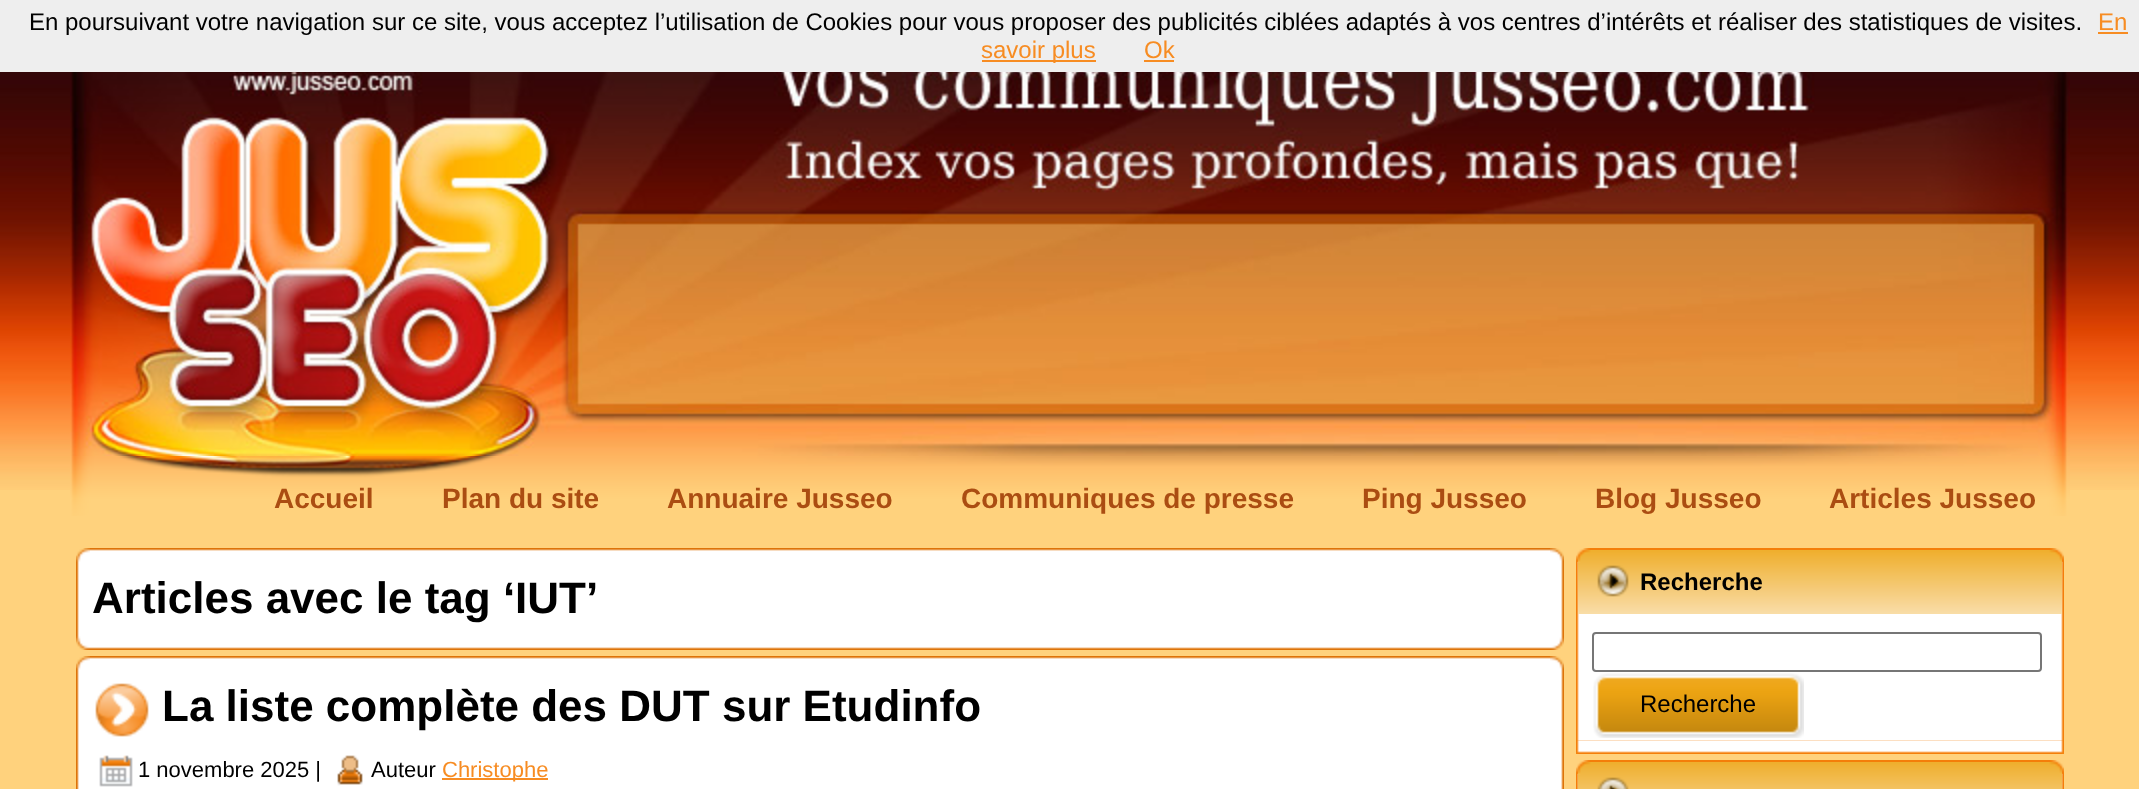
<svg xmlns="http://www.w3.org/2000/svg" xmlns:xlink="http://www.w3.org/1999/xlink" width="2139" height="789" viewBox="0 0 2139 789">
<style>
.cls-1{font:24px Liberation Sans;fill:#000000}
.cls-2{font:24px Liberation Sans;fill:#f78c22}
.cls-3{font:bold 28px Liberation Sans;fill:#ab4d12}
.cls-4{font:bold 44px Liberation Sans;fill:#000000}
.cls-5{font:22px Liberation Sans;fill:#000000}
.cls-6{font:22px Liberation Sans;fill:#f78c22}
.cls-7{font:bold 24px Liberation Sans;fill:#000000}
</style>
<rect width="100%" height="100%" fill="#ffd27d"/>
<image xlink:href="image0.png" x="0" y="72" width="2139" height="418"/>
<rect fill="#eeeeee" x="0" y="0" width="2139" height="72"/>
<rect fill="#f78c22" x="2098" y="32" width="30" height="2"/>
<rect fill="#f78c22" x="982" y="60" width="114" height="2"/>
<rect fill="#f78c22" x="1144" y="60" width="30" height="2"/>
<image xlink:href="image1.png" x="70" y="72" width="2000" height="384"/>
<image xlink:href="image2.png" x="70" y="456" width="2000" height="60"/>
<image xlink:href="image3.png" x="76" y="548" width="14" height="14"/>
<image xlink:href="image4.png" x="90" y="548" width="1460" height="14"/>
<image xlink:href="image5.png" x="1550" y="548" width="14" height="14"/>
<image xlink:href="image6.png" x="76" y="562" width="14" height="74"/>
<rect fill="#ffffff" x="90" y="562" width="1460" height="74"/>
<image xlink:href="image7.png" x="1550" y="562" width="14" height="74"/>
<image xlink:href="image8.png" x="76" y="636" width="14" height="14"/>
<image xlink:href="image9.png" x="90" y="636" width="1460" height="14"/>
<image xlink:href="image10.png" x="1550" y="636" width="14" height="14"/>
<image xlink:href="image3.png" x="76" y="656" width="14" height="14"/>
<image xlink:href="image4.png" x="90" y="656" width="1460" height="14"/>
<image xlink:href="image5.png" x="1550" y="656" width="14" height="14"/>
<image xlink:href="image11.png" x="76" y="670" width="14" height="119"/>
<rect fill="#ffffff" x="90" y="670" width="1460" height="119"/>
<image xlink:href="image12.png" x="1550" y="670" width="14" height="119"/>
<image xlink:href="image13.png" x="95" y="683" width="54" height="54"/>
<image xlink:href="image14.png" x="99" y="755" width="34" height="32"/>
<image xlink:href="image15.png" x="337" y="755" width="26" height="31"/>
<rect fill="#f78c22" x="442" y="778" width="106" height="2"/>
<image xlink:href="image16.png" x="1576" y="548" width="14" height="14"/>
<rect fill="#f47e09" x="1590" y="548" width="460" height="5"/>
<image xlink:href="image17.png" x="2050" y="548" width="14" height="14"/>
<image xlink:href="image18.png" x="1576" y="562" width="14" height="178"/>
<image xlink:href="image19.png" x="1578" y="550" width="434" height="64"/>
<image xlink:href="image23.png" x="2050" y="562" width="14" height="178"/>
<image xlink:href="image20.png" x="2012" y="550" width="50" height="64"/>
<rect fill="#ffffff" x="1590" y="614" width="460" height="126"/>
<rect fill="none" stroke="#767676" stroke-width="2" x="1593" y="633" width="448" height="38" rx="3"/>
<image xlink:href="image21.png" x="1593" y="673" width="193" height="65"/>
<image xlink:href="image22.png" x="1786" y="673" width="18" height="65"/>
<image xlink:href="image24.png" x="1576" y="740" width="14" height="14"/>
<image xlink:href="image25.png" x="1590" y="740" width="460" height="14"/>
<image xlink:href="image26.png" x="2050" y="740" width="14" height="14"/>
<image xlink:href="image16.png" x="1576" y="760" width="14" height="14"/>
<rect fill="#f47e09" x="1590" y="760" width="460" height="5"/>
<image xlink:href="image17.png" x="2050" y="760" width="14" height="14"/>
<image xlink:href="image29.png" x="1576" y="774" width="5" height="15"/>
<image xlink:href="image27.png" x="1578" y="762" width="434" height="27"/>
<image xlink:href="image30.png" x="2060" y="774" width="4" height="15"/>
<image xlink:href="image28.png" x="2012" y="762" width="50" height="27"/>
<text class="cls-1" x="29" y="30">En poursuivant votre navigation sur ce site, vous acceptez l’utilisation de Cookies pour vous proposer des publicités ciblées adaptés à vos centres d’intérêts et réaliser des statistiques de visites.</text>
<text class="cls-2" x="2098" y="30">En</text>
<text class="cls-2" x="981" y="58">savoir plus</text>
<text class="cls-2" x="1144" y="58">Ok</text>
<text class="cls-3" x="274" y="508">Accueil</text>
<text class="cls-3" x="442" y="508">Plan du site</text>
<text class="cls-3" x="667" y="508">Annuaire Jusseo</text>
<text class="cls-3" x="961" y="508">Communiques de presse</text>
<text class="cls-3" x="1362" y="508">Ping Jusseo</text>
<text class="cls-3" x="1595" y="508">Blog Jusseo</text>
<text class="cls-3" x="1829" y="508">Articles Jusseo</text>
<text class="cls-4" x="92" y="613">Articles avec le tag ‘IUT’</text>
<text class="cls-4" x="162" y="721">La liste complète des DUT sur Etudinfo</text>
<text class="cls-5" x="138" y="777">1 novembre 2025 |</text>
<text class="cls-5" x="371" y="777">Auteur</text>
<text class="cls-6" x="442" y="777">Christophe</text>
<text class="cls-7" x="1640" y="590">Recherche</text>
<text class="cls-1" x="1640" y="712">Recherche</text>
</svg>
